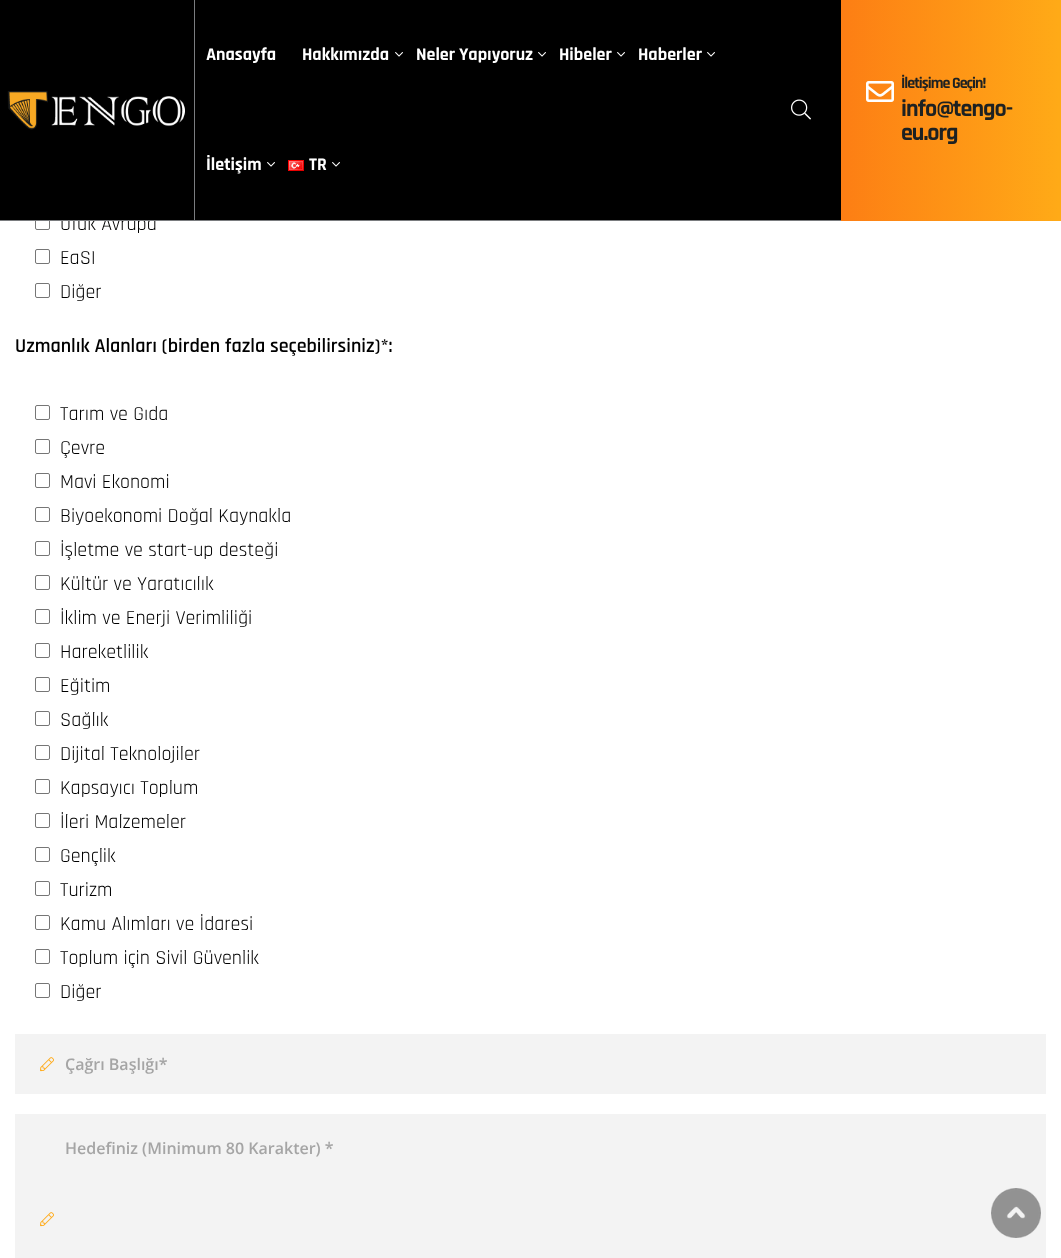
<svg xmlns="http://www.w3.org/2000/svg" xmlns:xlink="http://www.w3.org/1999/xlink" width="1061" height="1258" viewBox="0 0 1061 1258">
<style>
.cls-1{font:bold 18px Rajdhani;fill:#ffffff}
.cls-2{font:bold 16px Rajdhani;letter-spacing:-1px;fill:#1d2122}
.cls-3{font:bold 24px Rajdhani;letter-spacing:-1px;fill:#1d2122}
.cls-4{font:20px Rajdhani;fill:#000000}
.cls-5{font:600 20px Rajdhani;fill:#000000}
.cls-6{font:600 16px Open Sans;fill:#a5a5a5}
</style>
<defs>
<linearGradient id="g1" gradientUnits="userSpaceOnUse" x1="1061" y1="111" x2="841" y2="111"><stop offset="0.01" stop-color="#ffaa17"/><stop offset="1" stop-color="#fd7e14"/></linearGradient>
</defs>
<rect width="100%" height="100%" fill="#ffffff"/>
<rect fill="none" stroke="#767676" x="35.5" y="215.5" width="14" height="14" rx="1.5"/>
<rect fill="#000000" x="0" y="0" width="841" height="220"/>
<rect fill="#7a7c7f" x="194" y="0" width="1" height="220"/>
<image xlink:href="image0.png" x="7" y="91" width="178" height="39"/>
<image xlink:href="image1.png" x="395" y="52" width="8" height="5"/>
<image xlink:href="image1.png" x="538" y="52" width="8" height="5"/>
<image xlink:href="image1.png" x="617" y="52" width="8" height="5"/>
<image xlink:href="image1.png" x="707" y="52" width="8" height="5"/>
<image xlink:href="image1.png" x="267" y="162" width="8" height="5"/>
<image xlink:href="image2.png" x="288" y="160" width="16" height="11"/>
<image xlink:href="image1.png" x="332" y="162" width="8" height="5"/>
<image xlink:href="image3.png" x="791" y="99" width="20" height="21"/>
<rect fill="url(#g1)" x="841" y="0" width="220" height="221"/>
<image xlink:href="image4.png" x="866" y="81" width="28" height="21"/>
<rect fill="none" stroke="#767676" x="35.5" y="249.5" width="14" height="14" rx="1.5"/>
<rect fill="none" stroke="#767676" x="35.5" y="283.5" width="14" height="14" rx="1.5"/>
<rect fill="none" stroke="#767676" x="35.5" y="405.5" width="14" height="14" rx="1.5"/>
<rect fill="none" stroke="#767676" x="35.5" y="439.5" width="14" height="14" rx="1.5"/>
<rect fill="none" stroke="#767676" x="35.5" y="473.5" width="14" height="14" rx="1.5"/>
<rect fill="none" stroke="#767676" x="35.5" y="507.5" width="14" height="14" rx="1.5"/>
<rect fill="none" stroke="#767676" x="35.5" y="541.5" width="14" height="14" rx="1.5"/>
<rect fill="none" stroke="#767676" x="35.5" y="575.5" width="14" height="14" rx="1.5"/>
<rect fill="none" stroke="#767676" x="35.5" y="609.5" width="14" height="14" rx="1.5"/>
<rect fill="none" stroke="#767676" x="35.5" y="643.5" width="14" height="14" rx="1.5"/>
<rect fill="none" stroke="#767676" x="35.5" y="677.5" width="14" height="14" rx="1.5"/>
<rect fill="none" stroke="#767676" x="35.5" y="711.5" width="14" height="14" rx="1.5"/>
<rect fill="none" stroke="#767676" x="35.5" y="745.5" width="14" height="14" rx="1.5"/>
<rect fill="none" stroke="#767676" x="35.5" y="779.5" width="14" height="14" rx="1.5"/>
<rect fill="none" stroke="#767676" x="35.5" y="813.5" width="14" height="14" rx="1.5"/>
<rect fill="none" stroke="#767676" x="35.5" y="847.5" width="14" height="14" rx="1.5"/>
<rect fill="none" stroke="#767676" x="35.5" y="881.5" width="14" height="14" rx="1.5"/>
<rect fill="none" stroke="#767676" x="35.5" y="915.5" width="14" height="14" rx="1.5"/>
<rect fill="none" stroke="#767676" x="35.5" y="949.5" width="14" height="14" rx="1.5"/>
<rect fill="none" stroke="#767676" x="35.5" y="983.5" width="14" height="14" rx="1.5"/>
<rect fill="#f3f3f3" x="15" y="1034" width="1031" height="60"/>
<image xlink:href="image5.png" x="40" y="1057" width="14" height="15"/>
<rect fill="#f3f3f3" x="15" y="1114" width="1031" height="144"/>
<image xlink:href="image5.png" x="40" y="1212" width="14" height="15"/>
<image xlink:href="image6.png" x="991" y="1188" width="50" height="50"/>
<text class="cls-1" x="206" y="60">Anasayfa</text>
<text class="cls-1" x="302" y="60">Hakkımızda</text>
<text class="cls-1" x="416" y="60">Neler Yapıyoruz</text>
<text class="cls-1" x="559" y="60">Hibeler</text>
<text class="cls-1" x="638" y="60">Haberler</text>
<text class="cls-1" x="206" y="170">İletişim</text>
<text class="cls-1" x="309" y="170">TR</text>
<text class="cls-2" x="901" y="88">İletişime Geçin!</text>
<text class="cls-3"><tspan x="901" y="116">info@tengo-</tspan><tspan x="901" y="140">eu.org</tspan></text>
<text class="cls-4" x="60" y="230">Ufuk Avrupa</text>
<rect fill="#7a7c7f" x="0" y="220" width="841" height="1"/>
<text class="cls-4"><tspan x="60" y="264">EaSI</tspan><tspan x="60" y="298">Diğer</tspan></text>
<text class="cls-5" x="15" y="352">Uzmanlık Alanları (birden fazla seçebilirsiniz)*:</text>
<text class="cls-4"><tspan x="60" y="420">Tarım ve Gıda</tspan><tspan x="60" y="454">Çevre</tspan><tspan x="60" y="488">Mavi Ekonomi</tspan><tspan x="60" y="522">Biyoekonomi Doğal Kaynakla</tspan><tspan x="60" y="556">İşletme ve start-up desteği</tspan><tspan x="60" y="590">Kültür ve Yaratıcılık</tspan><tspan x="60" y="624">İklim ve Enerji Verimliliği</tspan><tspan x="60" y="658">Hareketlilik</tspan><tspan x="60" y="692">Eğitim</tspan><tspan x="60" y="726">Sağlık</tspan><tspan x="60" y="760">Dijital Teknolojiler</tspan><tspan x="60" y="794">Kapsayıcı Toplum</tspan><tspan x="60" y="828">İleri Malzemeler</tspan><tspan x="60" y="862">Gençlik</tspan><tspan x="60" y="896">Turizm</tspan><tspan x="60" y="930">Kamu Alımları ve İdaresi</tspan><tspan x="60" y="964">Toplum için Sivil Güvenlik</tspan><tspan x="60" y="998">Diğer</tspan></text>
<text class="cls-6" x="65" y="1070">Çağrı Başlığı*</text>
<text class="cls-6" x="65" y="1154">Hedefiniz (Minimum 80 Karakter) *</text>
</svg>
